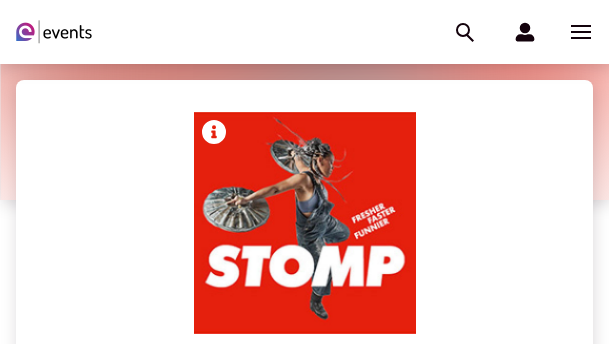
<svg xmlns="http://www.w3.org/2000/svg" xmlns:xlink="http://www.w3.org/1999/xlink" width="609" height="344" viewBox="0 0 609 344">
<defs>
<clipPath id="clip1"><path d="M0 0H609V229H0ZM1 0H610V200H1Z" clip-rule="evenodd"/></clipPath>
</defs>
<rect width="100%" height="100%" fill="#ffffff"/>
<g clip-path="url(#clip1)">
<rect fill="#13020c" fill-opacity="0.15" filter="blur(8px)" x="2" y="4" width="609" height="200"/>
</g>
<image xlink:href="image0.png" x="0" y="64" width="609" height="136"/>
<rect fill="#13020c" fill-opacity="0.15" filter="blur(8px)" x="17" y="84" width="577" height="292" rx="8"/>
<rect fill="#ffffff" x="16" y="80" width="577" height="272" rx="8"/>
<image xlink:href="image1.png" x="194" y="112" width="222" height="222"/>
<image xlink:href="image2.png" x="202" y="120" width="24" height="24"/>
<rect fill="#13020c" fill-opacity="0.15" filter="blur(8px)" x="1" y="4" width="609" height="64"/>
<rect fill="#ffffff" x="0" y="0" width="609" height="64"/>
<image xlink:href="image3.png" x="16" y="20" width="76" height="24"/>
<circle fill="none" stroke="#13020c" stroke-width="2" cx="463" cy="30" r="6"/>
<path fill="#13020c" d="M467 33.5L474 40.5L472.5 42L465.5 35Z"/>
<image xlink:href="image4.png" x="515" y="22" width="20" height="20"/>
<rect fill="#13020c" x="571" y="31" width="20" height="2"/>
<rect fill="#13020c" x="571" y="25" width="20" height="2"/>
<rect fill="#13020c" x="571" y="37" width="20" height="2"/>
</svg>
